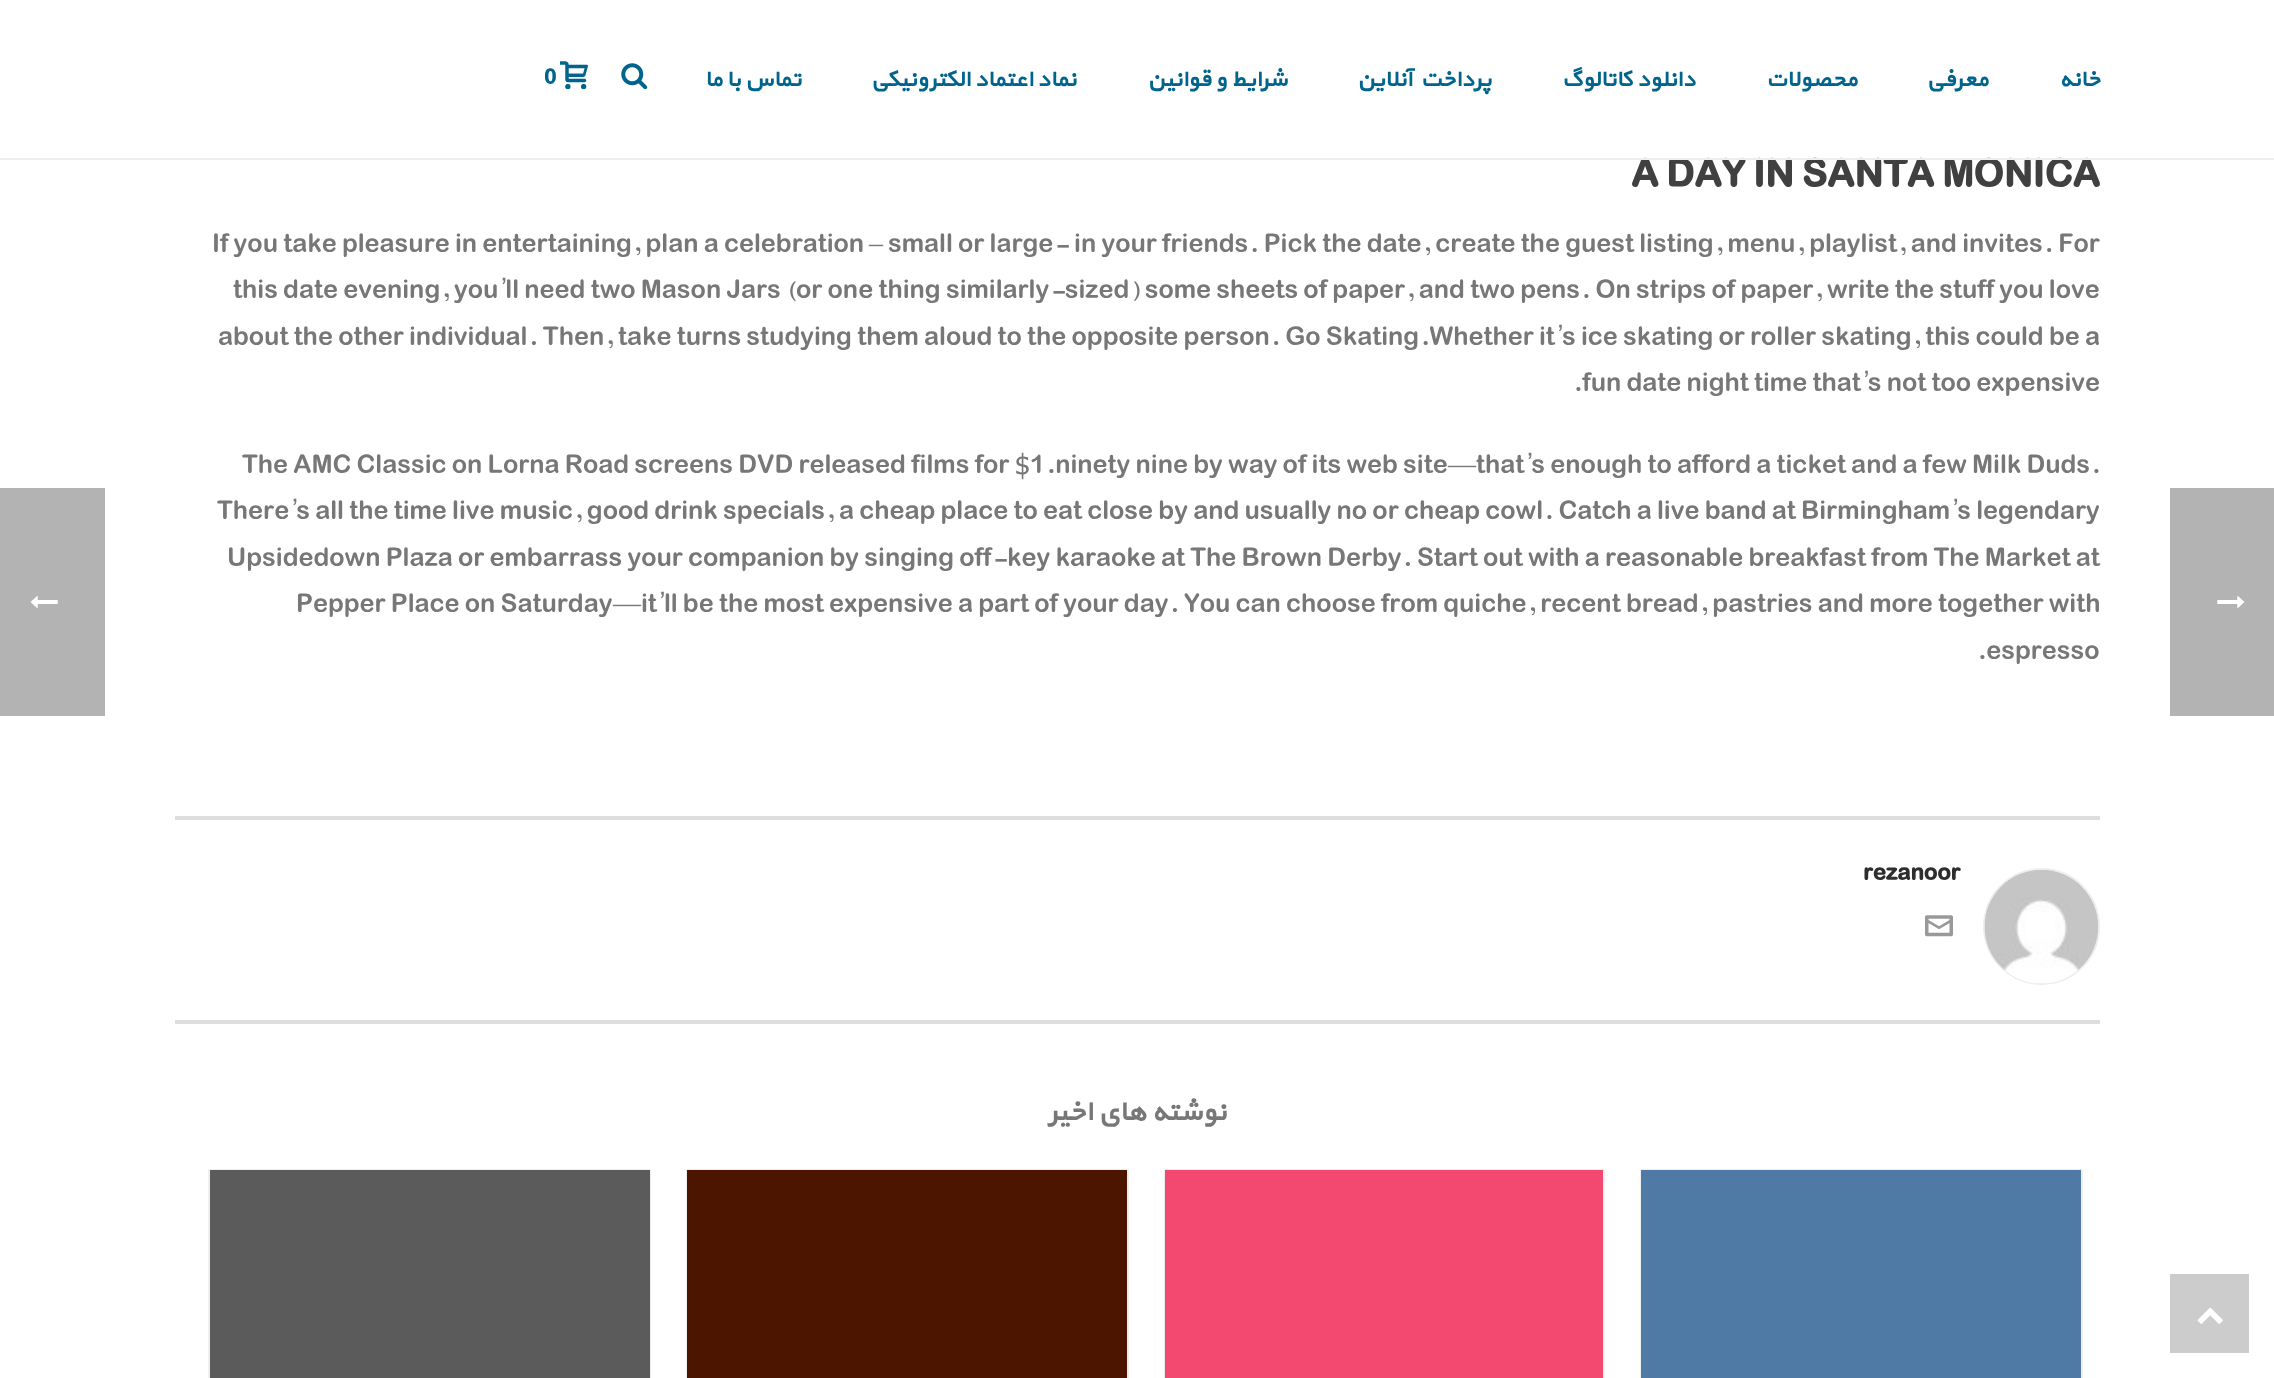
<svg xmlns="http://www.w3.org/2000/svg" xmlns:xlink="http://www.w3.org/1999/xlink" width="2274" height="1378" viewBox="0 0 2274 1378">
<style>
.cls-1{font:bold 22.75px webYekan;fill:#00648d}
.cls-2{font:bold 22.75px webYekan;direction:rtl;fill:#00648d}
.cls-3{font:bold 42px webYekan;fill:#404040}
.cls-4{font:28px webYekan;fill:#777777}
.cls-5{font:28px Liberation Serif;fill:#777777}
.cls-6{font:bold 24.5px webYekan;fill:#2e2e2e}
.cls-7{font:bold 28px webYekan;direction:rtl;fill:#777777}
</style>
<rect width="100%" height="100%" fill="#ffffff"/>
<rect fill="#b3b3b3" x="0" y="488" width="105" height="228"/>
<image xlink:href="image0.png" x="30" y="596" width="28" height="12"/>
<image xlink:href="image1.png" x="560" y="61" width="28" height="28"/>
<image xlink:href="image2.png" x="621" y="63" width="27" height="26"/>
<rect fill="#dddddd" x="175" y="816" width="1925" height="4"/>
<rect fill="#dddddd" x="175" y="1020" width="1925" height="4"/>
<circle fill="none" stroke="#eeeeee" stroke-width="2" cx="2041.5" cy="926.5" r="57.5"/>
<image xlink:href="image3.png" x="1984" y="870" width="114" height="114"/>
<image xlink:href="image4.png" x="1925" y="915" width="28" height="22"/>
<rect fill="none" stroke="#efefef" stroke-width="2" x="209" y="1170" width="441" height="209"/>
<rect fill="#5b5b5b" x="210" y="1170" width="440" height="208"/>
<rect fill="none" stroke="#efefef" stroke-width="2" x="687" y="1170" width="441" height="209"/>
<rect fill="#4c1500" x="687" y="1170" width="440" height="208"/>
<rect fill="none" stroke="#efefef" stroke-width="2" x="1165" y="1170" width="439" height="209"/>
<rect fill="#f34970" x="1165" y="1170" width="438" height="208"/>
<rect fill="none" stroke="#efefef" stroke-width="2" x="1641" y="1170" width="441" height="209"/>
<rect fill="#4f7aa6" x="1641" y="1170" width="440" height="208"/>
<rect fill="#b3b3b3" x="2170" y="488" width="104" height="228"/>
<image xlink:href="image5.png" x="2217" y="596" width="28" height="12"/>
<rect fill="#cccccc" x="2170" y="1274" width="79" height="79"/>
<image xlink:href="image6.png" x="2197" y="1307" width="26" height="17"/>
<text class="cls-1" x="544" y="84">0</text>
<text class="cls-2" x="801" y="86">تماس با ما</text>
<text class="cls-2" x="1076" y="86">نماد اعتماد الکترونیکی</text>
<text class="cls-2" x="1287" y="86">شرایط و قوانین</text>
<text class="cls-2" x="1491" y="86">پرداخت آنلاین</text>
<text class="cls-2" x="1695" y="86">دانلود کاتالوگ</text>
<text class="cls-2" x="1857" y="86">محصولات</text>
<text class="cls-2" x="1988" y="86">معرفی</text>
<text class="cls-2" x="2100" y="86">خانه</text>
<text class="cls-3" x="1631" y="187">A DAY IN SANTA MONICA</text>
<rect fill="#ededed" x="0" y="158" width="2274" height="2"/>
<text class="cls-4" x="212" y="252">If you take pleasure in entertaining, plan a celebration</text>
<text class="cls-5" x="869" y="252">–</text>
<text class="cls-4" x="888" y="252">small or large- in your friends. Pick the date, create the guest listing, menu, playlist, and invites. For</text>
<text class="cls-4" x="233" y="298">this date evening, you’ll need two Mason Jars (or one thing similarly-sized) some sheets of paper, and two pens. On strips of paper, write the stuff you love</text>
<text class="cls-4" x="218" y="345">about the other individual. Then, take turns studying them aloud to the opposite person. Go Skating.Whether it’s ice skating or roller skating, this could be a</text>
<text class="cls-4" x="1572" y="391">.fun date night time that’s not too expensive</text>
<text class="cls-4" x="242" y="473">The AMC Classic on Lorna Road screens DVD released films for $1.ninety nine by way of its web site</text>
<text class="cls-5" x="1448" y="473">—</text>
<text class="cls-4" x="1476" y="473">that’s enough to afford a ticket and a few Milk Duds.</text>
<text class="cls-4" x="217" y="519">There’s all the time live music, good drink specials, a cheap place to eat close by and usually no or cheap cowl. Catch a live band at Birmingham’s legendary</text>
<text class="cls-4" x="227" y="566">Upsidedown Plaza or embarrass your companion by singing off-key karaoke at The Brown Derby. Start out with a reasonable breakfast from The Market at</text>
<text class="cls-4" x="296" y="612">Pepper Place on Saturday</text>
<text class="cls-5" x="613" y="612">—</text>
<text class="cls-4" x="641" y="612">it’ll be the most expensive a part of your day. You can choose from quiche, recent bread, pastries and more together with</text>
<text class="cls-4" x="1976" y="659">.espresso</text>
<text class="cls-6" x="1863" y="880">rezanoor</text>
<text class="cls-7" x="1226" y="1120">نوشته های اخیر</text>
</svg>
